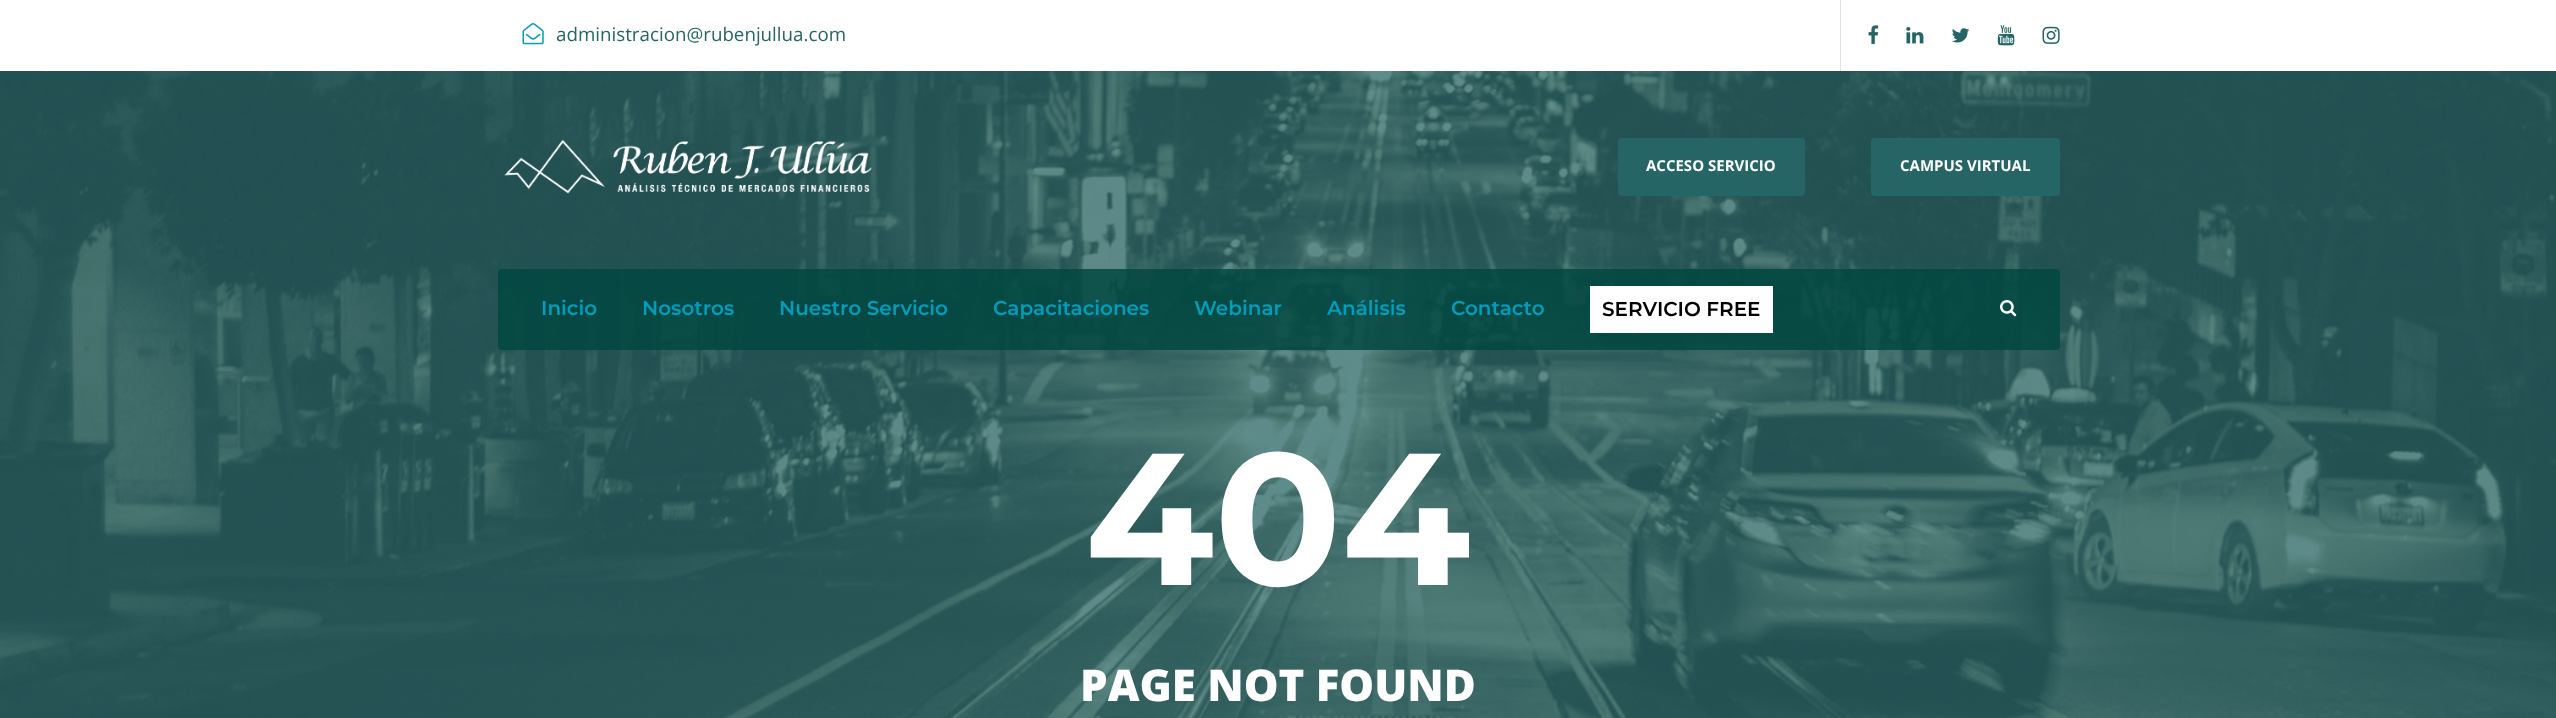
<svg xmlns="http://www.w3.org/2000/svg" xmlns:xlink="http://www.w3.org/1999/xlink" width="2556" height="718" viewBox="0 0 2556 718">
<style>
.cls-1{font:18.75px Open Sans;fill:#256565}
.cls-2{font:bold 15px Open Sans;fill:#ffffff}
.cls-3{font:600 20px Montserrat;fill:#019dbc}
.cls-4{font:600 20px Montserrat;fill:#000000}
.cls-5{font:bold 187.5px Montserrat;fill:#ffffff}
.cls-6{font:800 43.75px Open Sans;fill:#ffffff}
</style>
<rect width="100%" height="100%" fill="#256565"/>
<rect fill="#ffffff" x="0" y="0" width="2556" height="71"/>
<image xlink:href="image0.png" x="522" y="23" width="22" height="22"/>
<rect fill="#e3e3e3" x="1840" y="0" width="1" height="71"/>
<image xlink:href="image1.png" x="1868" y="25" width="11" height="19"/>
<image xlink:href="image2.png" x="1906" y="27" width="18" height="17"/>
<image xlink:href="image3.png" x="1951" y="28" width="19" height="15"/>
<image xlink:href="image4.png" x="1997" y="25" width="18" height="21"/>
<image xlink:href="image5.png" x="2042" y="26" width="18" height="18"/>
<image xlink:href="image8.png" x="0" y="71" width="2556" height="647"/>
<image xlink:href="image6.png" x="504" y="139" width="368" height="55"/>
<rect fill="#256565" x="1618" y="138" width="187" height="58" rx="4"/>
<rect fill="#256565" x="1871" y="138" width="189" height="58" rx="4"/>
<rect fill="#004740" fill-opacity="0.82" x="498" y="269" width="1562" height="81" rx="4"/>
<rect fill="#ffffff" x="1590" y="286" width="183" height="47"/>
<image xlink:href="image7.png" x="2000" y="300" width="17" height="17"/>
<text class="cls-1" x="556" y="41">administracion@rubenjullua.com</text>
<text class="cls-2" x="1646" y="171">ACCESO SERVICIO</text>
<text class="cls-2" x="1900" y="171">CAMPUS VIRTUAL</text>
<text class="cls-3" x="541" y="315">Inicio</text>
<text class="cls-3" x="642" y="315">Nosotros</text>
<text class="cls-3" x="779" y="315">Nuestro Servicio</text>
<text class="cls-3" x="993" y="315">Capacitaciones</text>
<text class="cls-3" x="1194" y="315">Webinar</text>
<text class="cls-3" x="1327" y="315">Análisis</text>
<text class="cls-3" x="1451" y="315">Contacto</text>
<text class="cls-4" x="1602" y="316">SERVICIO FREE</text>
<text class="cls-5" x="1085" y="585">404</text>
<text class="cls-6" x="1080" y="701">PAGE NOT FOUND</text>
</svg>
